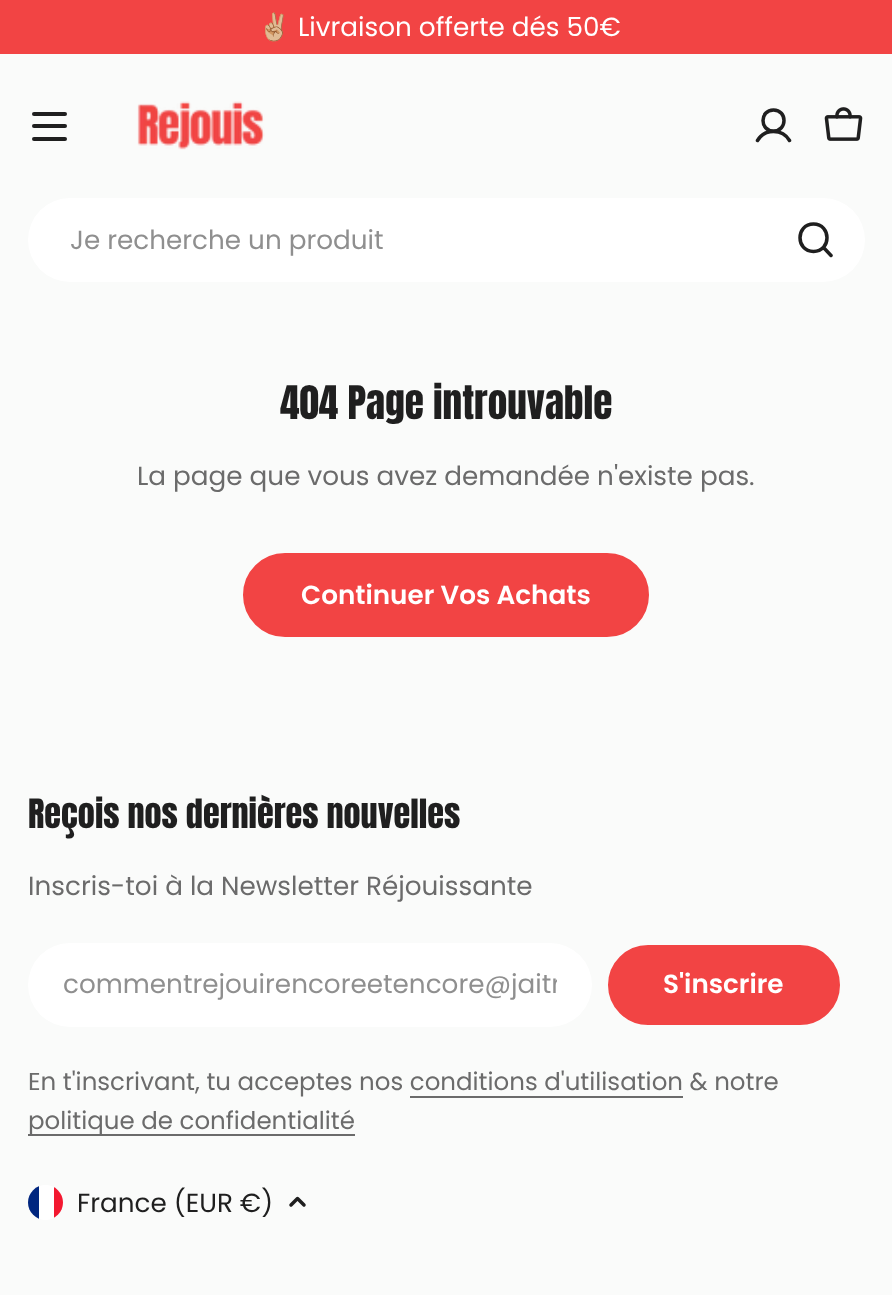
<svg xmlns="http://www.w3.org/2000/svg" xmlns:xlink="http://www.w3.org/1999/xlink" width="892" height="1295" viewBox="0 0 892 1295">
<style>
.cls-1{font:26.25px Noto Color Emoji;fill:#ffffff}
.cls-2{font:26.25px Poppins;fill:#ffffff}
.cls-3{font:26.25px Poppins;fill:#8f8f8f}
.cls-4{font:39.25px Anton;fill:#1f1f1f}
.cls-5{font:26.25px Poppins;fill:#6b6b6b}
.cls-6{font:600 26.25px Poppins;fill:#ffffff}
.cls-7{font:34.25px Anton;fill:#1f1f1f}
.cls-8{font:24.5px Poppins;fill:#6b6b6b}
.cls-9{font:26.25px Poppins;fill:#1f1f1f}
</style>
<defs>
<clipPath id="clip1"><rect x="28" y="1185" width="35" height="35" rx="17.5"/></clipPath>
<clipPath id="clip2"><rect x="63" y="964" width="494" height="41"/></clipPath>
</defs>
<rect width="100%" height="100%" fill="#fafbfa"/>
<rect fill="#f24444" x="0" y="0" width="892" height="54"/>
<rect fill="#1f1f1f" x="32" y="124" width="35" height="4" rx="2"/>
<rect fill="#1f1f1f" x="32" y="112" width="35" height="4" rx="2"/>
<rect fill="#1f1f1f" x="32" y="137" width="35" height="4" rx="2"/>
<image xlink:href="image0.png" x="137" y="101" width="128" height="49"/>
<path fill="none" stroke="#1f1f1f" stroke-width="3.5" stroke-linecap="round" stroke-linejoin="round" d="M773.5 131C787.5 131 787.5 110 773.5 110C759.5 110 759.5 131 773.5 131ZM757.5 140.5C764.5 128.5 782.5 128.5 789.5 140.5"/>
<image xlink:href="image1.png" x="824" y="107" width="39" height="34"/>
<rect fill="#ffffff" x="28" y="198" width="837" height="84" rx="42"/>
<path fill="none" stroke="#1f1f1f" stroke-width="3.5" stroke-linecap="round" stroke-linejoin="round" d="M813.5 251.5C831.5 251.5 831.5 224 813.5 224C795.5 224 795.5 251.5 813.5 251.5ZM823.5 247.5L831 255.5"/>
<rect fill="#f24444" stroke="#f24444" stroke-width="2" x="244" y="554" width="404" height="82" rx="41"/>
<rect fill="#ffffff" x="28" y="943" width="564" height="84" rx="42"/>
<rect fill="#f24444" stroke="#fafbfa" stroke-width="2" x="607" y="944" width="234" height="82" rx="41"/>
<rect fill="#6b6b6b" x="410" y="1096" width="273" height="2"/>
<rect fill="#6b6b6b" x="28" y="1134" width="327" height="2"/>
<circle fill="#ffffff" cx="45.5" cy="1202.5" r="17.5"/>
<g clip-path="url(#clip1)">
<rect fill="#00267f" x="28" y="1186" width="11" height="33"/>
<rect fill="#f31830" x="54" y="1187" width="9" height="31"/>
</g>
<path fill="none" stroke="#1f1f1f" stroke-width="3.5" stroke-linecap="round" stroke-linejoin="round" d="M291 1205L297.5 1198.5L304 1205"/>
<text class="cls-1" x="258" y="36">✌🏼</text>
<text class="cls-2" x="298" y="36">Livraison offerte dés 50€</text>
<text class="cls-3" x="70" y="249">Je recherche un produit</text>
<text class="cls-4" x="280" y="419">404 Page introuvable</text>
<text class="cls-5" x="137" y="485">La page que vous avez demandée n'existe pas.</text>
<text class="cls-6" x="301" y="604">Continuer Vos Achats</text>
<text class="cls-7" x="28" y="828">Reçois nos dernières nouvelles</text>
<text class="cls-5" x="28" y="895">Inscris-toi à la Newsletter Réjouissante</text>
<g clip-path="url(#clip2)">
<text class="cls-3" x="63" y="993">commentrejouirencoreetencore@jaitr</text>
</g>
<text class="cls-6" x="663" y="993">S'inscrire</text>
<text class="cls-8"><tspan x="28" y="1090">En t'inscrivant, tu acceptes nos conditions d'utilisation &amp; notre</tspan><tspan x="28" y="1129">politique de confidentialité</tspan></text>
<text class="cls-9" x="77" y="1212">France (EUR €)</text>
</svg>
